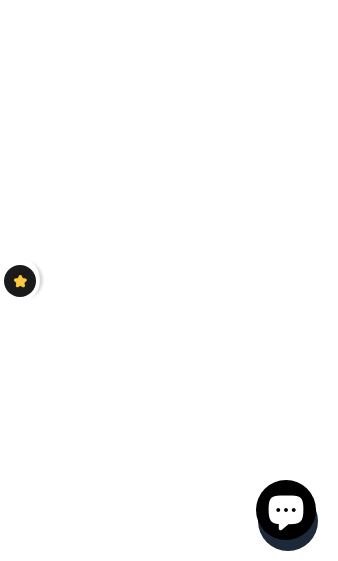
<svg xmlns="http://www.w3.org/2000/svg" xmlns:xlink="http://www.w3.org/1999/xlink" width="338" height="561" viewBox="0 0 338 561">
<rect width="100%" height="100%" fill="#ffffff"/>
<rect fill="#dadada" filter="blur(1px)" x="-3" y="260" width="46" height="40" rx="22"/>
<path fill="#ffffff" d="M0 303V258C8 258 19 256 27 259C48 269 42 303 18 303Z"/>
<circle fill="#1a1a1a" cx="20" cy="281" r="16"/>
<image xlink:href="image0.png" x="13" y="274" width="14" height="14"/>
<circle fill="#1d2939" cx="288" cy="521" r="30"/>
<circle fill="#000000" cx="286" cy="510" r="30"/>
<image xlink:href="image1.png" x="268" y="495" width="36" height="36"/>
</svg>
